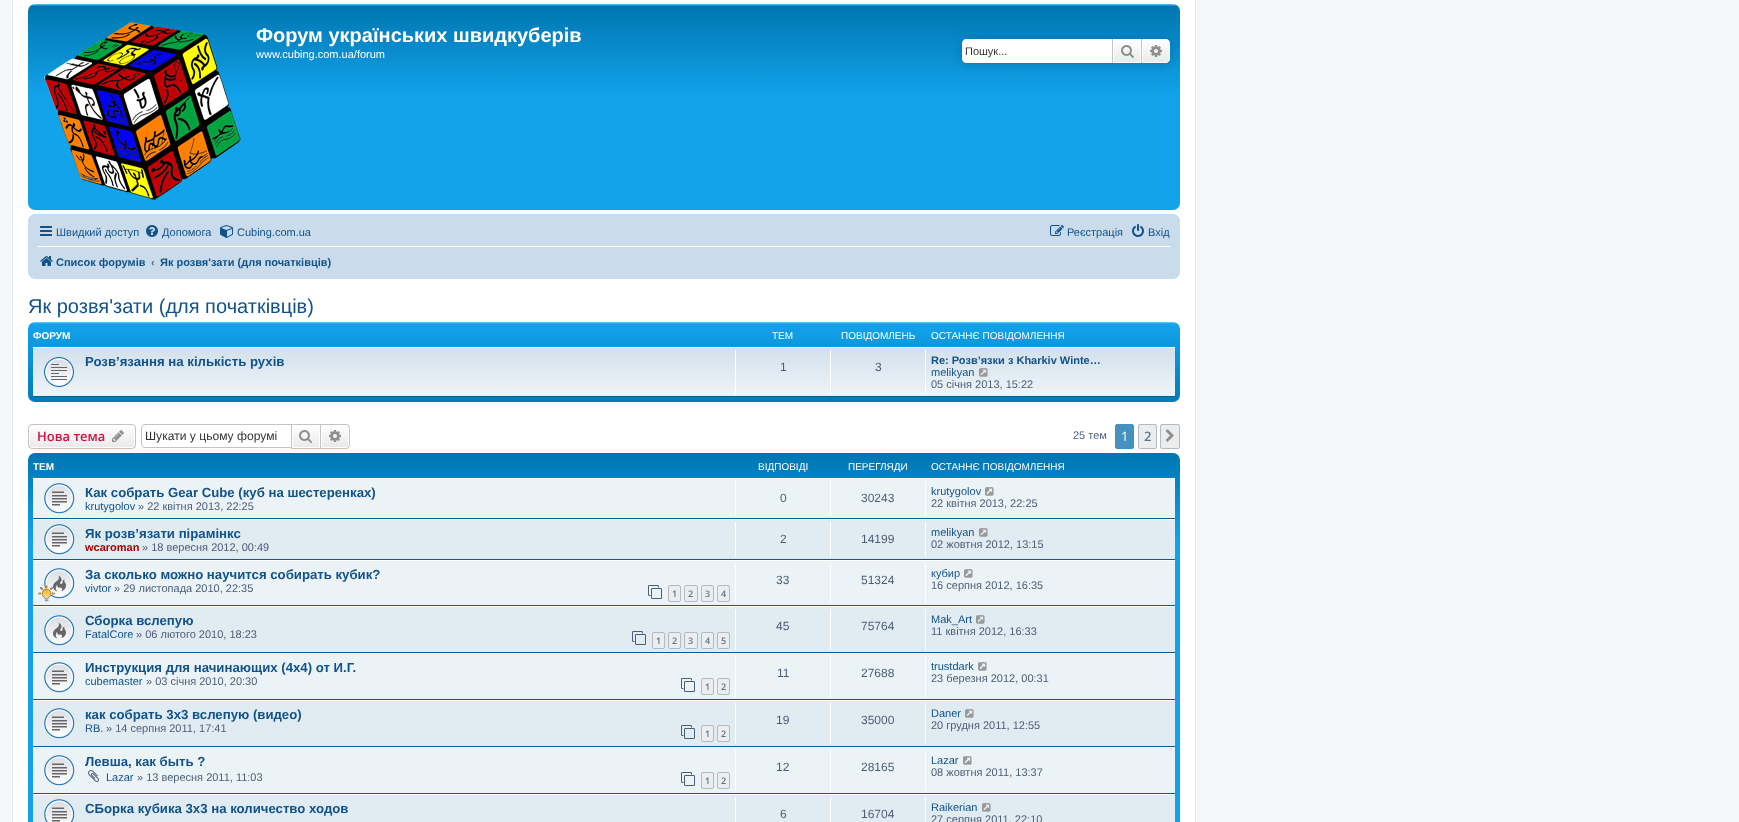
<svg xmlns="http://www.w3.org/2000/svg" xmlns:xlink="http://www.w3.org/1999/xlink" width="1739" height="822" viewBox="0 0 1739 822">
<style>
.cls-1{font:bold 20px Liberation Sans;fill:#ffffff}
.cls-2{font:11px Liberation Sans;fill:#ffffff}
.cls-3{font:11px Liberation Sans;fill:#333333}
.cls-4{font:11px Liberation Sans;fill:#105289}
.cls-5{font:bold 11px Liberation Sans;fill:#105289}
.cls-6{font:bold 11px Liberation Sans;fill:#536482}
.cls-7{font:20px Liberation Sans;fill:#105289}
.cls-8{font:bold 10px Liberation Sans;fill:#ffffff}
.cls-9{font:10px Liberation Sans;fill:#ffffff}
.cls-10{font:bold 13.2px Liberation Sans;fill:#105289}
.cls-11{font:12px Liberation Sans;fill:#4c5d77}
.cls-12{font:11px Liberation Sans;fill:#4c5d77}
.cls-13{font:600 13px Open Sans;fill:#d31141}
.cls-14{font:12.1px Liberation Sans;fill:#333333}
.cls-15{font:11px Liberation Sans;fill:#536482}
.cls-16{font:13px Open Sans;fill:#ffffff}
.cls-17{font:600 13px Open Sans;fill:#5c758c}
.cls-18{font:bold 11px Liberation Sans;fill:#aa0000}
.cls-19{font:600 9px Open Sans;fill:#5c758c}
</style>
<defs>
<linearGradient id="g1" gradientUnits="userSpaceOnUse" x1="604" y1="4" x2="604" y2="210"><stop offset="0" stop-color="#6aceff"/><stop offset="0.01" stop-color="#0076b1"/><stop offset="0.45" stop-color="#12a3eb"/><stop offset="1" stop-color="#12a3eb"/></linearGradient>
<linearGradient id="g2" gradientUnits="userSpaceOnUse" x1="1127" y1="39" x2="1127" y2="63"><stop offset="0" stop-color="#ffffff"/><stop offset="1" stop-color="#e9e9e9"/></linearGradient>
<linearGradient id="g3" gradientUnits="userSpaceOnUse" x1="1156" y1="39" x2="1156" y2="63"><stop offset="0" stop-color="#ffffff"/><stop offset="1" stop-color="#e9e9e9"/></linearGradient>
<linearGradient id="g4" gradientUnits="userSpaceOnUse" x1="604" y1="322" x2="604" y2="414"><stop offset="0" stop-color="#6aceff"/><stop offset="0.02" stop-color="#12a3eb"/><stop offset="1" stop-color="#0076b1"/></linearGradient>
<linearGradient id="g5" gradientUnits="userSpaceOnUse" x1="604" y1="347" x2="604" y2="397"><stop offset="0" stop-color="#d2e0eb"/><stop offset="1" stop-color="#eef5f9"/></linearGradient>
<clipPath id="clip1"><rect x="28" y="424" width="108" height="25" rx="4"/></clipPath>
<linearGradient id="g6" gradientUnits="userSpaceOnUse" x1="82" y1="425" x2="82" y2="448"><stop offset="0" stop-color="#ffffff"/><stop offset="1" stop-color="#e9e9e9"/></linearGradient>
<linearGradient id="g7" gradientUnits="userSpaceOnUse" x1="306" y1="425" x2="306" y2="448"><stop offset="0" stop-color="#ffffff"/><stop offset="1" stop-color="#e9e9e9"/></linearGradient>
<linearGradient id="g8" gradientUnits="userSpaceOnUse" x1="335" y1="425" x2="335" y2="448"><stop offset="0" stop-color="#ffffff"/><stop offset="1" stop-color="#e9e9e9"/></linearGradient>
<linearGradient id="g9" gradientUnits="userSpaceOnUse" x1="604" y1="453" x2="604" y2="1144"><stop offset="0" stop-color="#6aceff"/><stop offset="0" stop-color="#0076b1"/><stop offset="0.13" stop-color="#12a3eb"/><stop offset="1" stop-color="#12a3eb"/></linearGradient>
</defs>
<rect width="100%" height="100%" fill="#f5f7fa"/>
<rect fill="#ffffff" stroke="#e6e9ed" x="12.5" y="-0.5" width="1183" height="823"/>
<rect fill="url(#g1)" x="28" y="4" width="1152" height="206" rx="7"/>
<image xlink:href="image0.png" x="44" y="22" width="197" height="178"/>
<rect fill="#0075b0" filter="blur(5px)" x="962" y="39" width="208" height="24" rx="4"/>
<path fill="#ffffff" d="M966 39H1112V63H966C964 63 962 61 962 59V43C962 41 964 39 966 39Z"/>
<rect fill="url(#g2)" x="1114" y="40" width="26" height="22"/>
<rect fill="none" stroke="#ffffff" x="1113.5" y="39.5" width="27" height="23"/>
<rect fill="#c7c3bf" x="1141" y="39" width="1" height="24"/>
<rect fill="#c7c3bf" x="1112" y="39" width="1" height="24"/>
<image xlink:href="image1.png" x="1121" y="45" width="13" height="13"/>
<path fill="url(#g3)" stroke="#ffffff" d="M1142.5 39.5H1166C1168 39.5 1169.5 41 1169.5 43V59C1169.5 61 1168 62.5 1166 62.5H1142.5Z"/>
<image xlink:href="image2.png" x="1150" y="45" width="12" height="12"/>
<rect fill="#cadceb" x="28" y="214" width="1152" height="65" rx="7"/>
<image xlink:href="image3.png" x="40" y="226" width="12" height="10"/>
<image xlink:href="image4.png" x="146" y="225" width="12" height="12"/>
<image xlink:href="image5.png" x="220" y="225" width="13" height="13"/>
<image xlink:href="image6.png" x="1050" y="225" width="14" height="11"/>
<image xlink:href="image7.png" x="1132" y="224" width="12" height="13"/>
<rect fill="#ffffff" x="38" y="246" width="1132" height="1"/>
<image xlink:href="image8.png" x="40" y="256" width="13" height="10"/>
<rect fill="url(#g4)" x="28" y="322" width="1152" height="80" rx="7"/>
<rect fill="url(#g5)" x="33" y="348" width="1142" height="48"/>
<rect fill="#ffffff" x="33" y="347" width="1142" height="1"/>
<rect fill="#00608f" x="33" y="396" width="1142" height="1"/>
<image xlink:href="image9.png" x="44" y="357" width="30" height="30"/>
<rect fill="#ffffff" x="735" y="350" width="1" height="44"/>
<rect fill="#ffffff" x="830" y="350" width="1" height="44"/>
<rect fill="#ffffff" x="925" y="350" width="1" height="44"/>
<image xlink:href="image10.png" x="979" y="368" width="9" height="9"/>
<g clip-path="url(#clip1)">
<rect fill="url(#g6)" x="28" y="425" width="108" height="23"/>
</g>
<rect fill="none" stroke="#ffffff" x="29.5" y="425.5" width="105" height="22" rx="2.5"/>
<rect fill="none" stroke="#c7c3bf" x="28.5" y="424.5" width="107" height="24" rx="3.5"/>
<image xlink:href="image11.png" x="112" y="430" width="12" height="12"/>
<path fill="#c7c3bf" fill-rule="evenodd" d="M145 424H291V448H145C143 448 141 446 141 444V428C141 426 143 424 145 424ZM145 425H291V447H145C143 447 142 446 142 444V428C142 426 143 425 145 425Z"/>
<rect fill="url(#g7)" x="293" y="428" width="26" height="19"/>
<rect fill="none" stroke="#c7c3bf" x="291.5" y="424.5" width="29" height="24"/>
<image xlink:href="image12.png" x="299" y="430" width="13" height="13"/>
<path fill="url(#g8)" stroke="#ffffff" d="M321.5 425.5H346C347.5 425.5 348.5 426.5 348.5 428V445C348.5 446.5 347.5 447.5 346 447.5H321.5Z"/>
<path fill="#c7c3bf" fill-rule="evenodd" d="M321 424H346C348 424 350 426 350 428V445C350 447 348 449 346 449H321ZM321 425H346C347.5 425 349 426.5 349 428V445C349 446.5 347.5 448 346 448H321Z"/>
<image xlink:href="image13.png" x="329" y="430" width="12" height="12"/>
<rect fill="#4692bf" stroke="#4692bf" x="1115.5" y="424.5" width="18" height="24" rx="1.5"/>
<rect fill="#ecedee" stroke="#b4bac0" x="1138.5" y="424.5" width="18" height="24" rx="1.5"/>
<rect fill="#ecedee" stroke="#b4bac0" x="1160.5" y="424.5" width="19" height="24" rx="1.5"/>
<image xlink:href="image14.png" x="1165" y="429" width="9" height="13"/>
<rect fill="url(#g9)" x="28" y="453" width="1152" height="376" rx="7"/>
<rect fill="#ecf3f7" x="33" y="479" width="1142" height="39"/>
<rect fill="#ffffff" x="33" y="478" width="1142" height="1"/>
<rect fill="#00608f" x="33" y="518" width="1142" height="1"/>
<image xlink:href="image15.png" x="44" y="483" width="31" height="31"/>
<rect fill="#ffffff" x="735" y="481" width="1" height="35"/>
<rect fill="#ffffff" x="830" y="481" width="1" height="35"/>
<rect fill="#ffffff" x="925" y="481" width="1" height="35"/>
<image xlink:href="image16.png" x="985" y="487" width="9" height="9"/>
<rect fill="#e1ebf2" x="33" y="520" width="1142" height="39"/>
<rect fill="#ffffff" x="33" y="519" width="1142" height="1"/>
<rect fill="#00608f" x="33" y="559" width="1142" height="1"/>
<image xlink:href="image17.png" x="44" y="524" width="31" height="31"/>
<rect fill="#ffffff" x="735" y="522" width="1" height="35"/>
<rect fill="#ffffff" x="830" y="522" width="1" height="35"/>
<rect fill="#ffffff" x="925" y="522" width="1" height="35"/>
<image xlink:href="image18.png" x="979" y="528" width="9" height="9"/>
<rect fill="#ecf3f7" x="33" y="561" width="1142" height="44"/>
<rect fill="#ffffff" x="33" y="560" width="1142" height="1"/>
<rect fill="#00608f" x="33" y="605" width="1142" height="1"/>
<image xlink:href="image19.png" x="44" y="568" width="31" height="31"/>
<image xlink:href="image20.png" x="38" y="585" width="17" height="17"/>
<image xlink:href="image21.png" x="648" y="585" width="14" height="14"/>
<rect fill="#ecedee" stroke="#b4bac0" x="668.5" y="585.5" width="12" height="16" rx="1.5"/>
<rect fill="#ecedee" stroke="#b4bac0" x="684.5" y="585.5" width="13" height="16" rx="1.5"/>
<rect fill="#ecedee" stroke="#b4bac0" x="701.5" y="585.5" width="12" height="16" rx="1.5"/>
<rect fill="#ecedee" stroke="#b4bac0" x="717.5" y="585.5" width="12" height="16" rx="1.5"/>
<rect fill="#ffffff" x="735" y="563" width="1" height="40"/>
<rect fill="#ffffff" x="830" y="563" width="1" height="40"/>
<rect fill="#ffffff" x="925" y="563" width="1" height="40"/>
<image xlink:href="image16.png" x="964" y="569" width="9" height="9"/>
<rect fill="#e1ebf2" x="33" y="607" width="1142" height="45"/>
<rect fill="#ffffff" x="33" y="606" width="1142" height="1"/>
<rect fill="#00608f" x="33" y="652" width="1142" height="1"/>
<image xlink:href="image22.png" x="44" y="615" width="31" height="31"/>
<image xlink:href="image23.png" x="632" y="631" width="14" height="14"/>
<rect fill="#ecedee" stroke="#b4bac0" x="652.5" y="632.5" width="12" height="16" rx="1.5"/>
<rect fill="#ecedee" stroke="#b4bac0" x="668.5" y="632.5" width="12" height="16" rx="1.5"/>
<rect fill="#ecedee" stroke="#b4bac0" x="684.5" y="632.5" width="13" height="16" rx="1.5"/>
<rect fill="#ecedee" stroke="#b4bac0" x="701.5" y="632.5" width="12" height="16" rx="1.5"/>
<rect fill="#ecedee" stroke="#b4bac0" x="717.5" y="632.5" width="12" height="16" rx="1.5"/>
<rect fill="#ffffff" x="735" y="609" width="1" height="41"/>
<rect fill="#ffffff" x="830" y="609" width="1" height="41"/>
<rect fill="#ffffff" x="925" y="609" width="1" height="41"/>
<image xlink:href="image18.png" x="976" y="615" width="9" height="9"/>
<rect fill="#ecf3f7" x="33" y="654" width="1142" height="45"/>
<rect fill="#ffffff" x="33" y="653" width="1142" height="1"/>
<rect fill="#00608f" x="33" y="699" width="1142" height="1"/>
<image xlink:href="image15.png" x="44" y="662" width="31" height="31"/>
<image xlink:href="image21.png" x="681" y="678" width="14" height="14"/>
<rect fill="#ecedee" stroke="#b4bac0" x="701.5" y="678.5" width="12" height="16" rx="1.5"/>
<rect fill="#ecedee" stroke="#b4bac0" x="717.5" y="678.5" width="12" height="16" rx="1.5"/>
<rect fill="#ffffff" x="735" y="656" width="1" height="41"/>
<rect fill="#ffffff" x="830" y="656" width="1" height="41"/>
<rect fill="#ffffff" x="925" y="656" width="1" height="41"/>
<image xlink:href="image16.png" x="978" y="662" width="9" height="9"/>
<rect fill="#e1ebf2" x="33" y="701" width="1142" height="45"/>
<rect fill="#ffffff" x="33" y="700" width="1142" height="1"/>
<rect fill="#00608f" x="33" y="746" width="1142" height="1"/>
<image xlink:href="image17.png" x="44" y="708" width="31" height="31"/>
<image xlink:href="image23.png" x="681" y="725" width="14" height="14"/>
<rect fill="#ecedee" stroke="#b4bac0" x="701.5" y="725.5" width="12" height="16" rx="1.5"/>
<rect fill="#ecedee" stroke="#b4bac0" x="717.5" y="725.5" width="12" height="16" rx="1.5"/>
<rect fill="#ffffff" x="735" y="703" width="1" height="41"/>
<rect fill="#ffffff" x="830" y="703" width="1" height="41"/>
<rect fill="#ffffff" x="925" y="703" width="1" height="41"/>
<image xlink:href="image18.png" x="965" y="709" width="9" height="9"/>
<rect fill="#ecf3f7" x="33" y="748" width="1142" height="45"/>
<rect fill="#ffffff" x="33" y="747" width="1142" height="1"/>
<rect fill="#00608f" x="33" y="793" width="1142" height="1"/>
<image xlink:href="image15.png" x="44" y="755" width="31" height="31"/>
<image xlink:href="image24.png" x="88" y="770" width="11" height="12"/>
<image xlink:href="image21.png" x="681" y="772" width="14" height="14"/>
<rect fill="#ecedee" stroke="#b4bac0" x="701.5" y="772.5" width="12" height="16" rx="1.5"/>
<rect fill="#ecedee" stroke="#b4bac0" x="717.5" y="772.5" width="12" height="16" rx="1.5"/>
<rect fill="#ffffff" x="735" y="750" width="1" height="41"/>
<rect fill="#ffffff" x="830" y="750" width="1" height="41"/>
<rect fill="#ffffff" x="925" y="750" width="1" height="41"/>
<image xlink:href="image16.png" x="963" y="756" width="9" height="9"/>
<rect fill="#e1ebf2" x="33" y="795" width="1142" height="27"/>
<rect fill="#ffffff" x="33" y="794" width="1142" height="1"/>
<image xlink:href="image25.png" x="44" y="799" width="31" height="23"/>
<rect fill="#ffffff" x="735" y="797" width="1" height="25"/>
<rect fill="#ffffff" x="830" y="797" width="1" height="25"/>
<rect fill="#ffffff" x="925" y="797" width="1" height="25"/>
<image xlink:href="image18.png" x="982" y="803" width="9" height="9"/>
<text class="cls-1" x="256" y="42">Форум українських швидкуберів</text>
<text class="cls-2" x="256" y="58">www.cubing.com.ua/forum</text>
<text class="cls-3" x="965" y="55">Пошук...</text>
<text class="cls-4" x="56" y="236">Швидкий доступ</text>
<text class="cls-4" x="162" y="236">Допомога</text>
<text class="cls-4" x="237" y="236">Cubing.com.ua</text>
<text class="cls-4" x="1067" y="236">Реєстрація</text>
<text class="cls-4" x="1148" y="236">Вхід</text>
<text class="cls-5" x="56" y="266">Список форумів</text>
<text class="cls-6" x="151" y="266">‹</text>
<text class="cls-5" x="160" y="266">Як розвя'зати (для початківців)</text>
<text class="cls-7" x="28" y="313">Як розвя'зати (для початківців)</text>
<text class="cls-8" x="33" y="339">ФОРУМ</text>
<text class="cls-9" x="772" y="339">ТЕМ</text>
<text class="cls-9" x="841" y="339">ПОВІДОМЛЕНЬ</text>
<text class="cls-9" x="931" y="339">ОСТАННЄ ПОВІДОМЛЕННЯ</text>
<text class="cls-10" x="85" y="366">Розв’язання на кількість рухів</text>
<text class="cls-11" x="780" y="371">1</text>
<text class="cls-11" x="875" y="371">3</text>
<text class="cls-5" x="931" y="364">Re: Розв’язки з Kharkiv Winte…</text>
<text class="cls-4" x="931" y="376">melikyan</text>
<text class="cls-12" x="931" y="388">05 січня 2013, 15:22</text>
<text class="cls-13" x="37" y="441">Нова тема</text>
<text class="cls-14" x="145" y="440">Шукати у цьому форумі</text>
<text class="cls-15" x="1073" y="439">25 тем</text>
<text class="cls-16" x="1121" y="441">1</text>
<text class="cls-17" x="1144" y="441">2</text>
<text class="cls-8" x="33" y="470">ТЕМ</text>
<text class="cls-9" x="758" y="470">ВІДПОВІДІ</text>
<text class="cls-9" x="848" y="470">ПЕРЕГЛЯДИ</text>
<text class="cls-9" x="931" y="470">ОСТАННЄ ПОВІДОМЛЕННЯ</text>
<text class="cls-10" x="85" y="497">Как собрать Gear Cube (куб на шестеренках)</text>
<text class="cls-4" x="85" y="510">krutygolov</text>
<text class="cls-12" x="138" y="510">» 22 квітня 2013, 22:25</text>
<text class="cls-11" x="780" y="502">0</text>
<text class="cls-11" x="861" y="502">30243</text>
<text class="cls-4" x="931" y="495">krutygolov</text>
<text class="cls-12" x="931" y="507">22 квітня 2013, 22:25</text>
<text class="cls-10" x="85" y="538">Як розв’язати пірамінкс</text>
<text class="cls-18" x="85" y="551">wcaroman</text>
<text class="cls-12" x="142" y="551">» 18 вересня 2012, 00:49</text>
<text class="cls-11" x="780" y="543">2</text>
<text class="cls-11" x="861" y="543">14199</text>
<text class="cls-4" x="931" y="536">melikyan</text>
<text class="cls-12" x="931" y="548">02 жовтня 2012, 13:15</text>
<text class="cls-10" x="85" y="579">За сколько можно научится собирать кубик?</text>
<text class="cls-4" x="85" y="592">vivtor</text>
<text class="cls-12" x="114" y="592">» 29 листопада 2010, 22:35</text>
<text class="cls-19" x="672" y="597">1</text>
<text class="cls-19" x="688" y="597">2</text>
<text class="cls-19" x="705" y="597">3</text>
<text class="cls-19" x="721" y="597">4</text>
<text class="cls-11" x="776" y="584">33</text>
<text class="cls-11" x="861" y="584">51324</text>
<text class="cls-4" x="931" y="577">кубир</text>
<text class="cls-12" x="931" y="589">16 серпня 2012, 16:35</text>
<text class="cls-10" x="85" y="625">Сборка вслепую</text>
<text class="cls-4" x="85" y="638">FatalCore</text>
<text class="cls-12" x="136" y="638">» 06 лютого 2010, 18:23</text>
<text class="cls-19" x="656" y="644">1</text>
<text class="cls-19" x="672" y="644">2</text>
<text class="cls-19" x="688" y="644">3</text>
<text class="cls-19" x="705" y="644">4</text>
<text class="cls-19" x="721" y="644">5</text>
<text class="cls-11" x="776" y="630">45</text>
<text class="cls-11" x="861" y="630">75764</text>
<text class="cls-4" x="931" y="623">Mak_Art</text>
<text class="cls-12" x="931" y="635">11 квітня 2012, 16:33</text>
<text class="cls-10" x="85" y="672">Инструкция для начинающих (4х4) от И.Г.</text>
<text class="cls-4" x="85" y="685">cubemaster</text>
<text class="cls-12" x="146" y="685">» 03 січня 2010, 20:30</text>
<text class="cls-19" x="705" y="690">1</text>
<text class="cls-19" x="721" y="690">2</text>
<text class="cls-11" x="777" y="677">11</text>
<text class="cls-11" x="861" y="677">27688</text>
<text class="cls-4" x="931" y="670">trustdark</text>
<text class="cls-12" x="931" y="682">23 березня 2012, 00:31</text>
<text class="cls-10" x="85" y="719">как собрать 3х3 вслепую (видео)</text>
<text class="cls-4" x="85" y="732">RB.</text>
<text class="cls-12" x="106" y="732">» 14 серпня 2011, 17:41</text>
<text class="cls-19" x="705" y="737">1</text>
<text class="cls-19" x="721" y="737">2</text>
<text class="cls-11" x="776" y="724">19</text>
<text class="cls-11" x="861" y="724">35000</text>
<text class="cls-4" x="931" y="717">Daner</text>
<text class="cls-12" x="931" y="729">20 грудня 2011, 12:55</text>
<text class="cls-10" x="85" y="766">Левша, как быть ?</text>
<text class="cls-4" x="106" y="781">Lazar</text>
<text class="cls-12" x="137" y="781">» 13 вересня 2011, 11:03</text>
<text class="cls-19" x="705" y="784">1</text>
<text class="cls-19" x="721" y="784">2</text>
<text class="cls-11" x="776" y="771">12</text>
<text class="cls-11" x="861" y="771">28165</text>
<text class="cls-4" x="931" y="764">Lazar</text>
<text class="cls-12" x="931" y="776">08 жовтня 2011, 13:37</text>
<text class="cls-10" x="85" y="813">СБорка кубика 3х3 на количество ходов</text>
<text class="cls-11" x="780" y="818">6</text>
<text class="cls-11" x="861" y="818">16704</text>
<text class="cls-4" x="931" y="811">Raikerian</text>
<text class="cls-12" x="931" y="823">27 серпня 2011, 22:10</text>
</svg>
